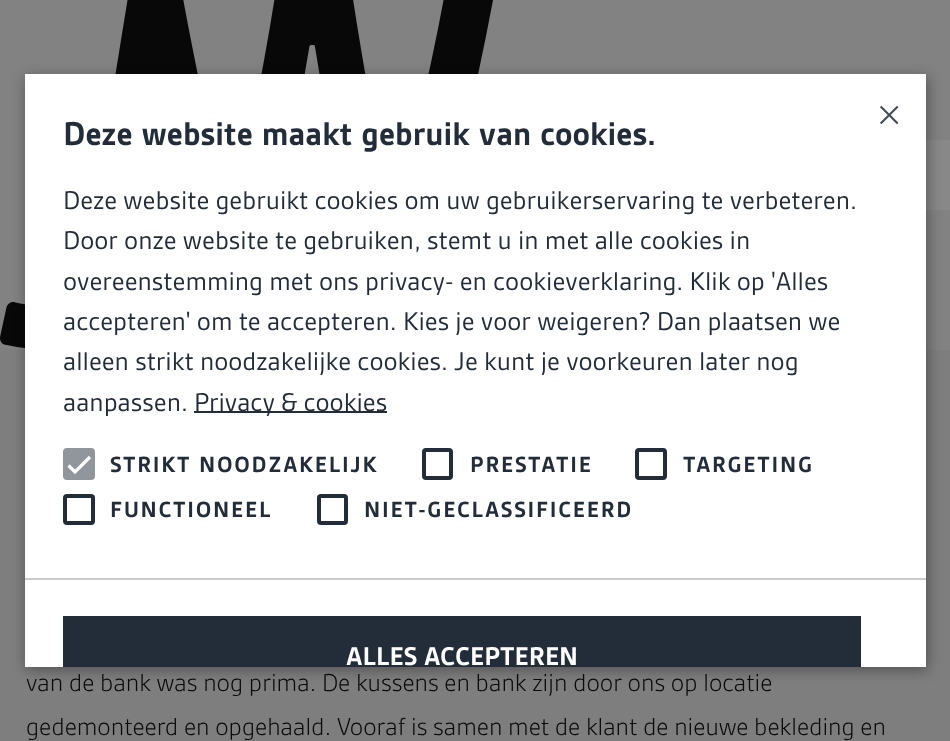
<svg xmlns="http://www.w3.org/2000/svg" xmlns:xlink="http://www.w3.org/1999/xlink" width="950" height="741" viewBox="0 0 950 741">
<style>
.cls-1{font:300 52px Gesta;fill:#444c57}
.cls-2{font:bold 31.5px Gesta;fill:#232c39}
.cls-3{font:24.5px Gesta;fill:#232c39}
.cls-4{font:bold 21px Gesta;letter-spacing:1.75px;fill:#232c39}
.cls-5{font:bold 24.5px Gesta;fill:#ffffff}
.cls-6{font:300 26.25px Gesta;fill:#090909}
</style>
<rect width="100%" height="100%" fill="#828282"/>
<image xlink:href="image0.png" x="0" y="0" width="493" height="349"/>
<rect fill="#888888" x="926" y="140" width="24" height="70"/>
<rect fill="#7e7e7e" x="0" y="350" width="950" height="391"/>
<rect fill="#000000" fill-opacity="0.35" filter="blur(7px)" x="26" y="77" width="902" height="593"/>
<rect fill="#ffffff" x="25" y="74" width="901" height="593"/>
<rect fill="#232c39" x="194" y="411" width="193" height="2"/>
<rect fill="#91969c" stroke="#91969c" stroke-width="4" x="65" y="450" width="28" height="28" rx="2"/>
<path fill="none" stroke="#ffffff" stroke-width="3.2" d="M68.5 465.5L75 472L90 457"/>
<rect fill="none" stroke="#232c39" stroke-width="4" x="424" y="450" width="27" height="28" rx="2"/>
<rect fill="none" stroke="#232c39" stroke-width="4" x="637" y="450" width="28" height="28" rx="2"/>
<rect fill="none" stroke="#232c39" stroke-width="4" x="65" y="496" width="28" height="27" rx="2"/>
<rect fill="none" stroke="#232c39" stroke-width="4" x="319" y="496" width="27" height="27" rx="2"/>
<rect fill="#c8cace" x="25" y="578" width="901" height="2"/>
<rect fill="#232c39" x="63" y="616" width="798" height="51"/>
<text class="cls-1" x="874" y="127">×</text>
<text class="cls-2" x="63" y="145">Deze website maakt gebruik van cookies.</text>
<text class="cls-3"><tspan x="63" y="209">Deze website gebruikt cookies om uw gebruikerservaring te verbeteren.</tspan><tspan x="63" y="249">Door onze website te gebruiken, stemt u in met alle cookies in</tspan><tspan x="63" y="290">overeenstemming met ons privacy- en cookieverklaring. Klik op 'Alles</tspan><tspan x="63" y="330">accepteren' om te accepteren. Kies je voor weigeren? Dan plaatsen we</tspan><tspan x="63" y="370">alleen strikt noodzakelijke cookies. Je kunt je voorkeuren later nog</tspan><tspan x="63" y="411">aanpassen.</tspan></text>
<text class="cls-3" x="194" y="411">Privacy &amp; cookies</text>
<text class="cls-4" x="110" y="472">STRIKT NOODZAKELIJK</text>
<text class="cls-4" x="470" y="472">PRESTATIE</text>
<text class="cls-4" x="683" y="472">TARGETING</text>
<text class="cls-4" x="110" y="517">FUNCTIONEEL</text>
<text class="cls-4" x="364" y="517">NIET-GECLASSIFICEERD</text>
<text class="cls-5" x="346" y="665">ALLES ACCEPTEREN</text>
<text class="cls-6"><tspan x="26" y="691">van de bank was nog prima. De kussens en bank zijn door ons op locatie</tspan><tspan x="26" y="735">gedemonteerd en opgehaald. Vooraf is samen met de klant de nieuwe bekleding en</tspan></text>
</svg>
